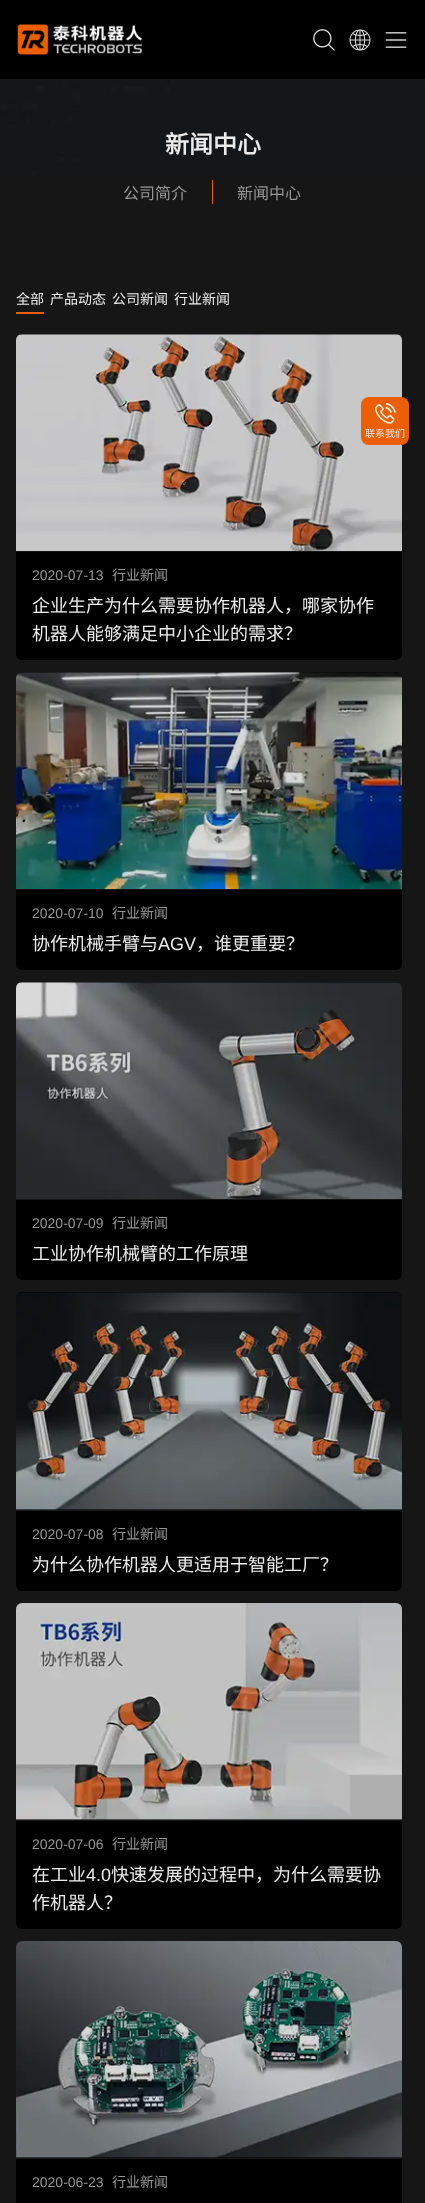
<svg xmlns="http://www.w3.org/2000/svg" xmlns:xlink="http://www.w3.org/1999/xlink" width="425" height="2203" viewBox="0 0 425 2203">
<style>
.cls-1{font:bold 24px Noto Sans CJK SC;fill:#ebebeb}
.cls-2{font:16px Noto Sans CJK SC;fill:#969696}
.cls-3{font:14px Noto Sans CJK SC;fill:#ebebeb}
.cls-4{font:14px Liberation Sans;fill:#969696}
.cls-5{font:14px Noto Sans CJK SC;fill:#969696}
.cls-6{font:18px Noto Sans CJK SC;fill:#ebebeb}
.cls-7{font:18px Liberation Sans;fill:#ebebeb}
.cls-8{font:10px Noto Sans CJK SC;fill:#ebebeb}
</style>
<rect width="100%" height="100%" fill="#161616"/>
<rect fill="#000000" x="0" y="0" width="425" height="79"/>
<image xlink:href="image0.png" x="17" y="24" width="126" height="31"/>
<image xlink:href="image1.png" x="313" y="29" width="22" height="22"/>
<image xlink:href="image2.png" x="349" y="29" width="22" height="22"/>
<image xlink:href="image3.png" x="385" y="32" width="22" height="16"/>
<image xlink:href="image4.png" x="0" y="80" width="425" height="97"/>
<rect fill="#eb5f00" x="212" y="180" width="1" height="24"/>
<rect fill="#eb5f00" x="16" y="312" width="28" height="2"/>
<rect fill="#000000" x="16" y="334" width="386" height="326" rx="6"/>
<image xlink:href="image5.png" x="16" y="334" width="386" height="217"/>
<path fill="#000000" fill-opacity="0.15" d="M22 334H396C399.5 334 402 336.5 402 340V551H16V340C16 336.5 18.5 334 22 334Z"/>
<rect fill="#161616" x="16" y="551" width="386" height="1"/>
<rect fill="#000000" x="16" y="672" width="386" height="298" rx="6"/>
<image xlink:href="image6.png" x="16" y="672" width="386" height="217"/>
<path fill="#000000" fill-opacity="0.15" d="M22 672H396C399.5 672 402 674.5 402 678V889H16V678C16 674.5 18.5 672 22 672Z"/>
<rect fill="#161616" x="16" y="889" width="386" height="1"/>
<rect fill="#000000" x="16" y="982" width="386" height="298" rx="6"/>
<image xlink:href="image7.png" x="16" y="982" width="386" height="217"/>
<path fill="#000000" fill-opacity="0.15" d="M22 982H396C399.5 982 402 984.5 402 988V1199H16V988C16 984.5 18.5 982 22 982Z"/>
<rect fill="#161616" x="16" y="1199" width="386" height="1"/>
<rect fill="#000000" x="16" y="1292" width="386" height="299" rx="6"/>
<image xlink:href="image8.png" x="16" y="1292" width="386" height="218"/>
<path fill="#000000" fill-opacity="0.15" d="M22 1292H396C399.5 1292 402 1294.5 402 1298V1510H16V1298C16 1294.5 18.5 1292 22 1292Z"/>
<rect fill="#161616" x="16" y="1510" width="386" height="1"/>
<rect fill="#000000" x="16" y="1603" width="386" height="326" rx="6"/>
<image xlink:href="image9.png" x="16" y="1603" width="386" height="217"/>
<path fill="#000000" fill-opacity="0.15" d="M22 1603H396C399.5 1603 402 1605.5 402 1609V1820H16V1609C16 1605.5 18.5 1603 22 1603Z"/>
<rect fill="#161616" x="16" y="1820" width="386" height="1"/>
<rect fill="#000000" x="16" y="1941" width="386" height="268" rx="6"/>
<image xlink:href="image10.png" x="16" y="1941" width="386" height="217"/>
<path fill="#000000" fill-opacity="0.15" d="M22 1941H396C399.5 1941 402 1943.5 402 1947V2158H16V1947C16 1943.5 18.5 1941 22 1941Z"/>
<rect fill="#161616" x="16" y="2158" width="386" height="1"/>
<rect fill="#eb5f00" x="361" y="397" width="48" height="48" rx="8"/>
<image xlink:href="image11.png" x="375" y="403" width="21" height="21"/>
<text class="cls-1" x="165" y="153">新闻中心</text>
<text class="cls-2" x="123" y="199">公司简介</text>
<text class="cls-2" x="237" y="199">新闻中心</text>
<text class="cls-3" x="16" y="304">全部</text>
<text class="cls-3" x="50" y="304">产品动态</text>
<text class="cls-3" x="112" y="304">公司新闻</text>
<text class="cls-3" x="174" y="304">行业新闻</text>
<text class="cls-4" x="32" y="580">2020-07-13</text>
<text class="cls-5" x="112" y="580">行业新闻</text>
<text class="cls-6"><tspan x="32" y="612">企业生产为什么需要协作机器人，哪家协作</tspan><tspan x="32" y="640">机器人能够满足中小企业的需求？</tspan></text>
<text class="cls-4" x="32" y="918">2020-07-10</text>
<text class="cls-5" x="112" y="918">行业新闻</text>
<text class="cls-6" x="32" y="950">协作机械手臂与</text>
<text class="cls-7" x="158" y="950">AGV</text>
<text class="cls-6" x="196" y="950">，谁更重要？</text>
<text class="cls-4" x="32" y="1228">2020-07-09</text>
<text class="cls-5" x="112" y="1228">行业新闻</text>
<text class="cls-6" x="32" y="1260">工业协作机械臂的工作原理</text>
<text class="cls-4" x="32" y="1539">2020-07-08</text>
<text class="cls-5" x="112" y="1539">行业新闻</text>
<text class="cls-6" x="32" y="1571">为什么协作机器人更适用于智能工厂？</text>
<text class="cls-4" x="32" y="1849">2020-07-06</text>
<text class="cls-5" x="112" y="1849">行业新闻</text>
<text class="cls-6" x="32" y="1881">在工业</text>
<text class="cls-7" x="86" y="1881">4.0</text>
<text class="cls-6" x="111" y="1881">快速发展的过程中，为什么需要协</text>
<text class="cls-6" x="32" y="1909">作机器人？</text>
<text class="cls-4" x="32" y="2187">2020-06-23</text>
<text class="cls-5" x="112" y="2187">行业新闻</text>
<text class="cls-8" x="365" y="437">联系我们</text>
</svg>
